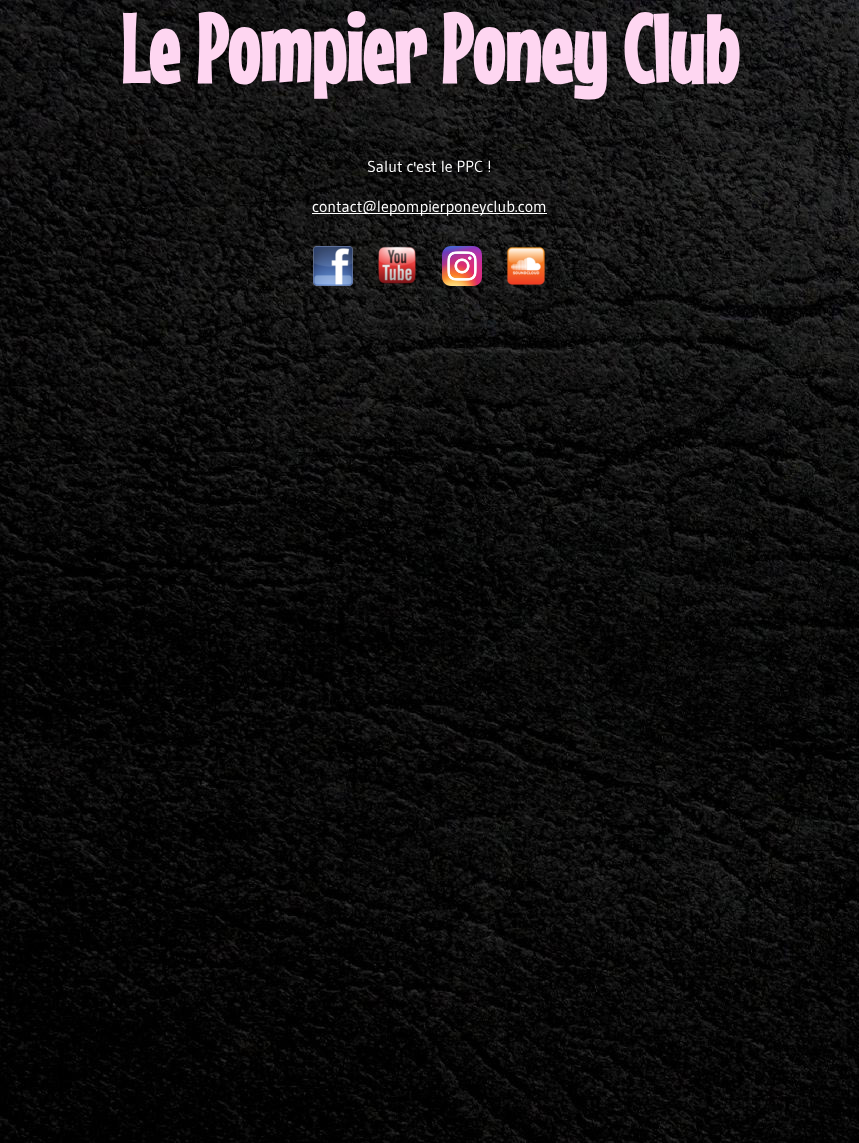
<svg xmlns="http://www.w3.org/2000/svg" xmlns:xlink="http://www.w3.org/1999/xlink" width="859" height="1143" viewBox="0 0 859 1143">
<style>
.cls-1{font:bold 96px Mouse Memoirs;fill:#fed6f1}
.cls-2{font:16px Gudea;fill:#ffffff}
</style>
<rect width="100%" height="100%" fill="#ffffff"/>
<image xlink:href="image0.png" x="0" y="0" width="859" height="1143"/>
<rect fill="#ffffff" x="312" y="213" width="235" height="1"/>
<image xlink:href="image1.png" x="313" y="246" width="40" height="40"/>
<image xlink:href="image2.png" x="378" y="246" width="38" height="38"/>
<image xlink:href="image3.png" x="442" y="246" width="40" height="40"/>
<image xlink:href="image4.png" x="506" y="246" width="40" height="40"/>
<text class="cls-1" x="120" y="83">Le Pompier Poney Club</text>
<text class="cls-2" x="367" y="172">Salut c'est le PPC !</text>
<text class="cls-2" x="312" y="212">contact@lepompierponeyclub.com</text>
</svg>
